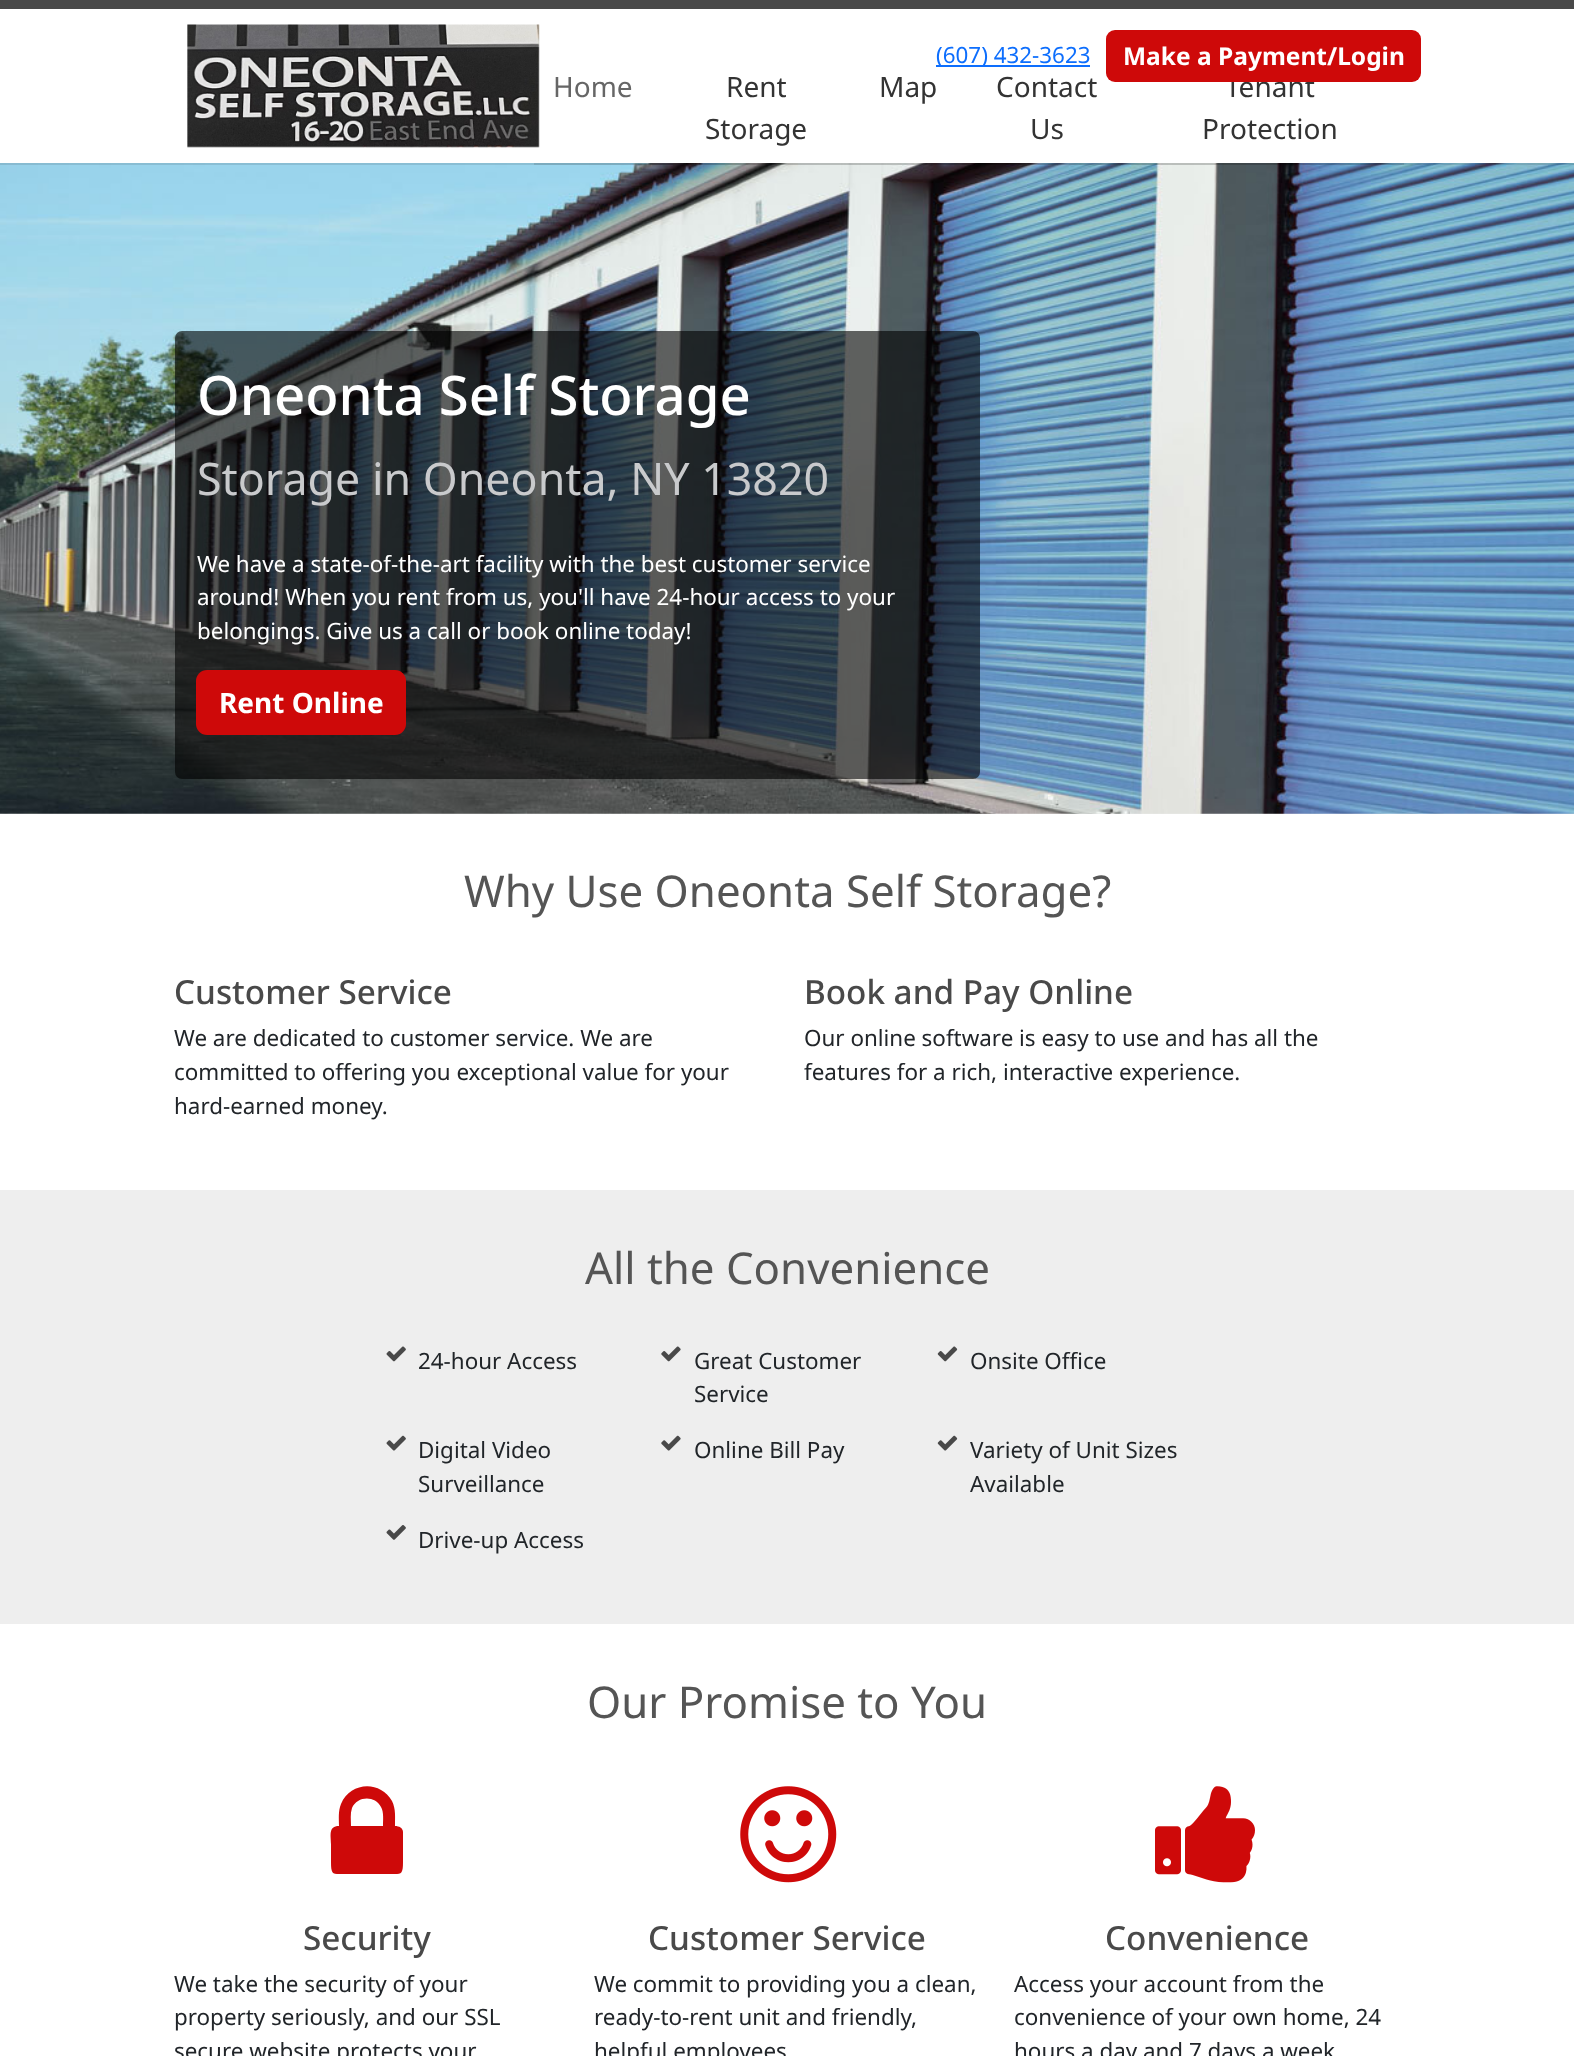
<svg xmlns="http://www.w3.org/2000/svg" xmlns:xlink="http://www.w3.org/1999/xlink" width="1574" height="2056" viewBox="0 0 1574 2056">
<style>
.cls-1{font:22.4px Noto Sans;fill:#0d6efd}
.cls-2{font:28px Noto Sans;fill:#666666}
.cls-3{font:28px Noto Sans;fill:#333333}
.cls-4{font:bold 24.5px Noto Sans;fill:#ffffff}
.cls-5{font:500 54.5px Noto Sans;fill:#ffffff}
.cls-6{font:44.75px Noto Sans;fill:#c9cacc}
.cls-7{font:22.4px Noto Sans;fill:#ffffff}
.cls-8{font:bold 28px Noto Sans;fill:#ffffff}
.cls-9{font:43.8px Noto Sans;fill:#555555}
.cls-10{font:500 33.25px Noto Sans;fill:#494949}
.cls-11{font:22.4px Noto Sans;fill:#212529}
</style>
<rect width="100%" height="100%" fill="#eeeeee"/>
<image xlink:href="image1.png" x="0" y="163" width="1574" height="651"/>
<rect fill="#000000" fill-opacity="0.1" x="0" y="163" width="1574" height="2"/>
<rect fill="#ffffff" x="0" y="9" width="1574" height="154"/>
<rect fill="#494949" x="0" y="0" width="1574" height="9"/>
<image xlink:href="image0.png" x="187" y="24" width="353" height="124"/>
<rect fill="#0d6efd" x="936" y="65" width="154" height="2"/>
<path fill="#000000" fill-opacity="0.1" d="M534 163V165H1404V11V163Z"/>
<rect fill="#000000" fill-opacity="0.6" x="175" y="331" width="805" height="448" rx="7"/>
<rect fill="#ce0909" x="196" y="670" width="210" height="65" rx="11"/>
<rect fill="#ffffff" x="0" y="814" width="1574" height="376"/>
<image xlink:href="image2.png" x="386" y="1346" width="20" height="16"/>
<image xlink:href="image3.png" x="661" y="1346" width="20" height="16"/>
<image xlink:href="image4.png" x="937" y="1346" width="21" height="16"/>
<image xlink:href="image5.png" x="386" y="1435" width="20" height="16"/>
<image xlink:href="image6.png" x="661" y="1435" width="20" height="16"/>
<image xlink:href="image7.png" x="937" y="1435" width="21" height="16"/>
<image xlink:href="image8.png" x="386" y="1525" width="20" height="15"/>
<rect fill="#ffffff" x="0" y="1624" width="1574" height="432"/>
<path fill="#ce0909" d="M351 1826H383C383 1820 384 1812 381 1807C375 1795 357 1796 352 1808C350 1814 351 1820 351 1826ZM403 1832V1862C403 1876 401 1874 387 1874H347C333 1874 331 1876 331 1862V1844C331 1836 328 1826 339 1826C339 1819 338 1811 341 1804C350 1782 380 1780 392 1801C396 1809 395 1818 395 1826C399 1826 403 1828 403 1832Z"/>
<image xlink:href="image9.png" x="740" y="1786" width="97" height="97"/>
<image xlink:href="image10.png" x="1155" y="1786" width="100" height="97"/>
<text class="cls-1" x="936" y="63">(607) 432-3623</text>
<text class="cls-2" x="553" y="97">Home</text>
<text class="cls-3" x="726" y="97">Rent</text>
<text class="cls-3" x="705" y="139">Storage</text>
<text class="cls-3" x="879" y="97">Map</text>
<text class="cls-3" x="996" y="97">Contact</text>
<text class="cls-3" x="1030" y="139">Us</text>
<text class="cls-3" x="1225" y="97">Tenant</text>
<rect fill="#ce0909" x="1106" y="30" width="315" height="52" rx="9"/>
<text class="cls-4" x="1123" y="65">Make a Payment/Login</text>
<text class="cls-3" x="1202" y="139">Protection</text>
<text class="cls-5" x="197" y="415">Oneonta Self Storage</text>
<text class="cls-6" x="197" y="495">Storage in Oneonta, NY 13820</text>
<text class="cls-7"><tspan x="197" y="572">We have a state-of-the-art facility with the best customer service</tspan><tspan x="197" y="605">around! When you rent from us, you'll have 24-hour access to your</tspan><tspan x="197" y="639">belongings. Give us a call or book online today!</tspan></text>
<text class="cls-8" x="219" y="713">Rent Online</text>
<text class="cls-9" x="464" y="907">Why Use Oneonta Self Storage?</text>
<text class="cls-10" x="174" y="1004">Customer Service</text>
<text class="cls-11"><tspan x="174" y="1046">We are dedicated to customer service. We are</tspan><tspan x="174" y="1080">committed to offering you exceptional value for your</tspan><tspan x="174" y="1114">hard-earned money.</tspan></text>
<text class="cls-10" x="804" y="1004">Book and Pay Online</text>
<text class="cls-11"><tspan x="804" y="1046">Our online software is easy to use and has all the</tspan><tspan x="804" y="1080">features for a rich, interactive experience.</tspan></text>
<text class="cls-9" x="585" y="1284">All the Convenience</text>
<text class="cls-11" x="418" y="1369">24-hour Access</text>
<text class="cls-11"><tspan x="694" y="1369">Great Customer</tspan><tspan x="694" y="1402">Service</tspan></text>
<text class="cls-11" x="970" y="1369">Onsite Office</text>
<text class="cls-11"><tspan x="418" y="1458">Digital Video</tspan><tspan x="418" y="1492">Surveillance</tspan></text>
<text class="cls-11" x="694" y="1458">Online Bill Pay</text>
<text class="cls-11"><tspan x="970" y="1458">Variety of Unit Sizes</tspan><tspan x="970" y="1492">Available</tspan></text>
<text class="cls-11" x="418" y="1548">Drive-up Access</text>
<text class="cls-9" x="587" y="1718">Our Promise to You</text>
<text class="cls-10" x="303" y="1950">Security</text>
<text class="cls-11"><tspan x="174" y="1992">We take the security of your</tspan><tspan x="174" y="2025">property seriously, and our SSL</tspan><tspan x="174" y="2059">secure website protects your</tspan></text>
<text class="cls-10" x="648" y="1950">Customer Service</text>
<text class="cls-11"><tspan x="594" y="1992">We commit to providing you a clean,</tspan><tspan x="594" y="2025">ready-to-rent unit and friendly,</tspan><tspan x="594" y="2059">helpful employees</tspan></text>
<text class="cls-10" x="1105" y="1950">Convenience</text>
<text class="cls-11"><tspan x="1014" y="1992">Access your account from the</tspan><tspan x="1014" y="2025">convenience of your own home, 24</tspan><tspan x="1014" y="2059">hours a day and 7 days a week</tspan></text>
</svg>
